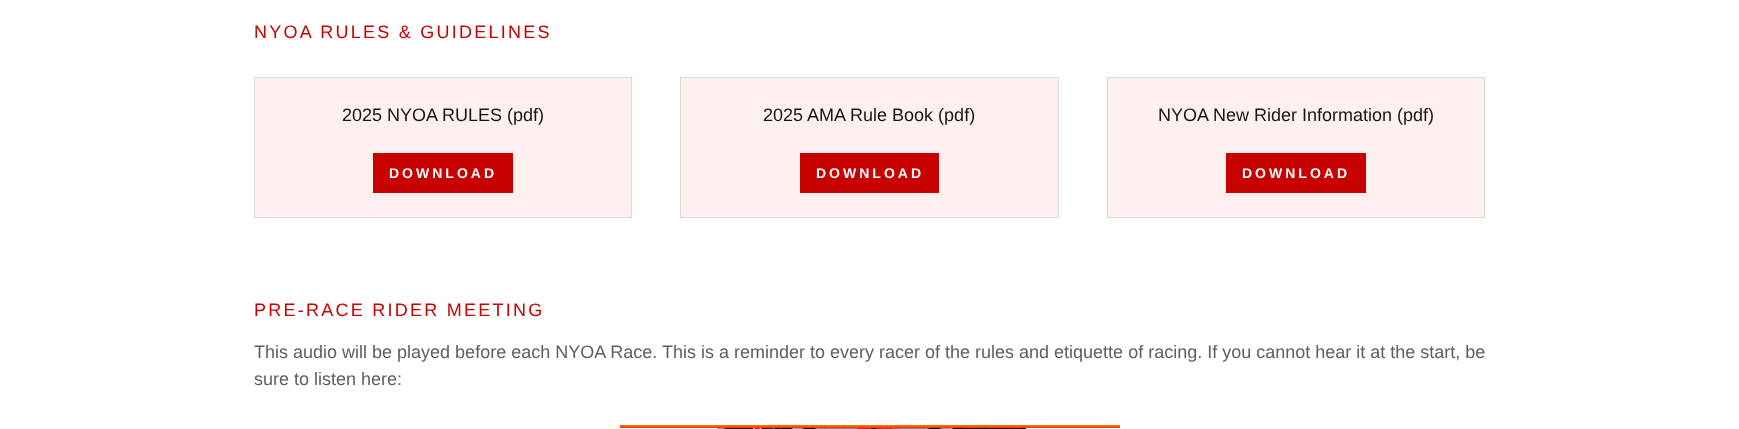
<svg xmlns="http://www.w3.org/2000/svg" xmlns:xlink="http://www.w3.org/1999/xlink" width="1739" height="429" viewBox="0 0 1739 429">
<style>
.cls-1{font:18px Liberation Sans;letter-spacing:2.25px;fill:#c70000}
.cls-2{font:18px Liberation Sans;fill:#151515}
.cls-3{font:bold 14px Liberation Sans;letter-spacing:3px;fill:#ffffff}
.cls-4{font:18px Liberation Sans;fill:#5e5e5e}
</style>
<rect width="100%" height="100%" fill="#ffffff"/>
<rect fill="#fff0f0" stroke="#dadada" x="254.5" y="77.5" width="377" height="140"/>
<rect fill="#c70000" x="373" y="153" width="140" height="40"/>
<rect fill="#fff0f0" stroke="#dadada" x="680.5" y="77.5" width="378" height="140"/>
<rect fill="#c70000" x="800" y="153" width="139" height="40"/>
<rect fill="#fff0f0" stroke="#dadada" x="1107.5" y="77.5" width="377" height="140"/>
<rect fill="#c70000" x="1226" y="153" width="140" height="40"/>
<image xlink:href="image0.png" x="620" y="425" width="500" height="4"/>
<text class="cls-1" x="254" y="38">NYOA RULES &amp; GUIDELINES</text>
<text class="cls-2" x="342" y="121">2025 NYOA RULES (pdf)</text>
<text class="cls-3" x="389" y="178">DOWNLOAD</text>
<text class="cls-2" x="763" y="121">2025 AMA Rule Book (pdf)</text>
<text class="cls-3" x="816" y="178">DOWNLOAD</text>
<text class="cls-2" x="1158" y="121">NYOA New Rider Information (pdf)</text>
<text class="cls-3" x="1242" y="178">DOWNLOAD</text>
<text class="cls-1" x="254" y="316">PRE-RACE RIDER MEETING</text>
<text class="cls-4"><tspan x="254" y="358">This audio will be played before each NYOA Race. This is a reminder to every racer of the rules and etiquette of racing. If you cannot hear it at the start, be</tspan><tspan x="254" y="385">sure to listen here:</tspan></text>
</svg>
